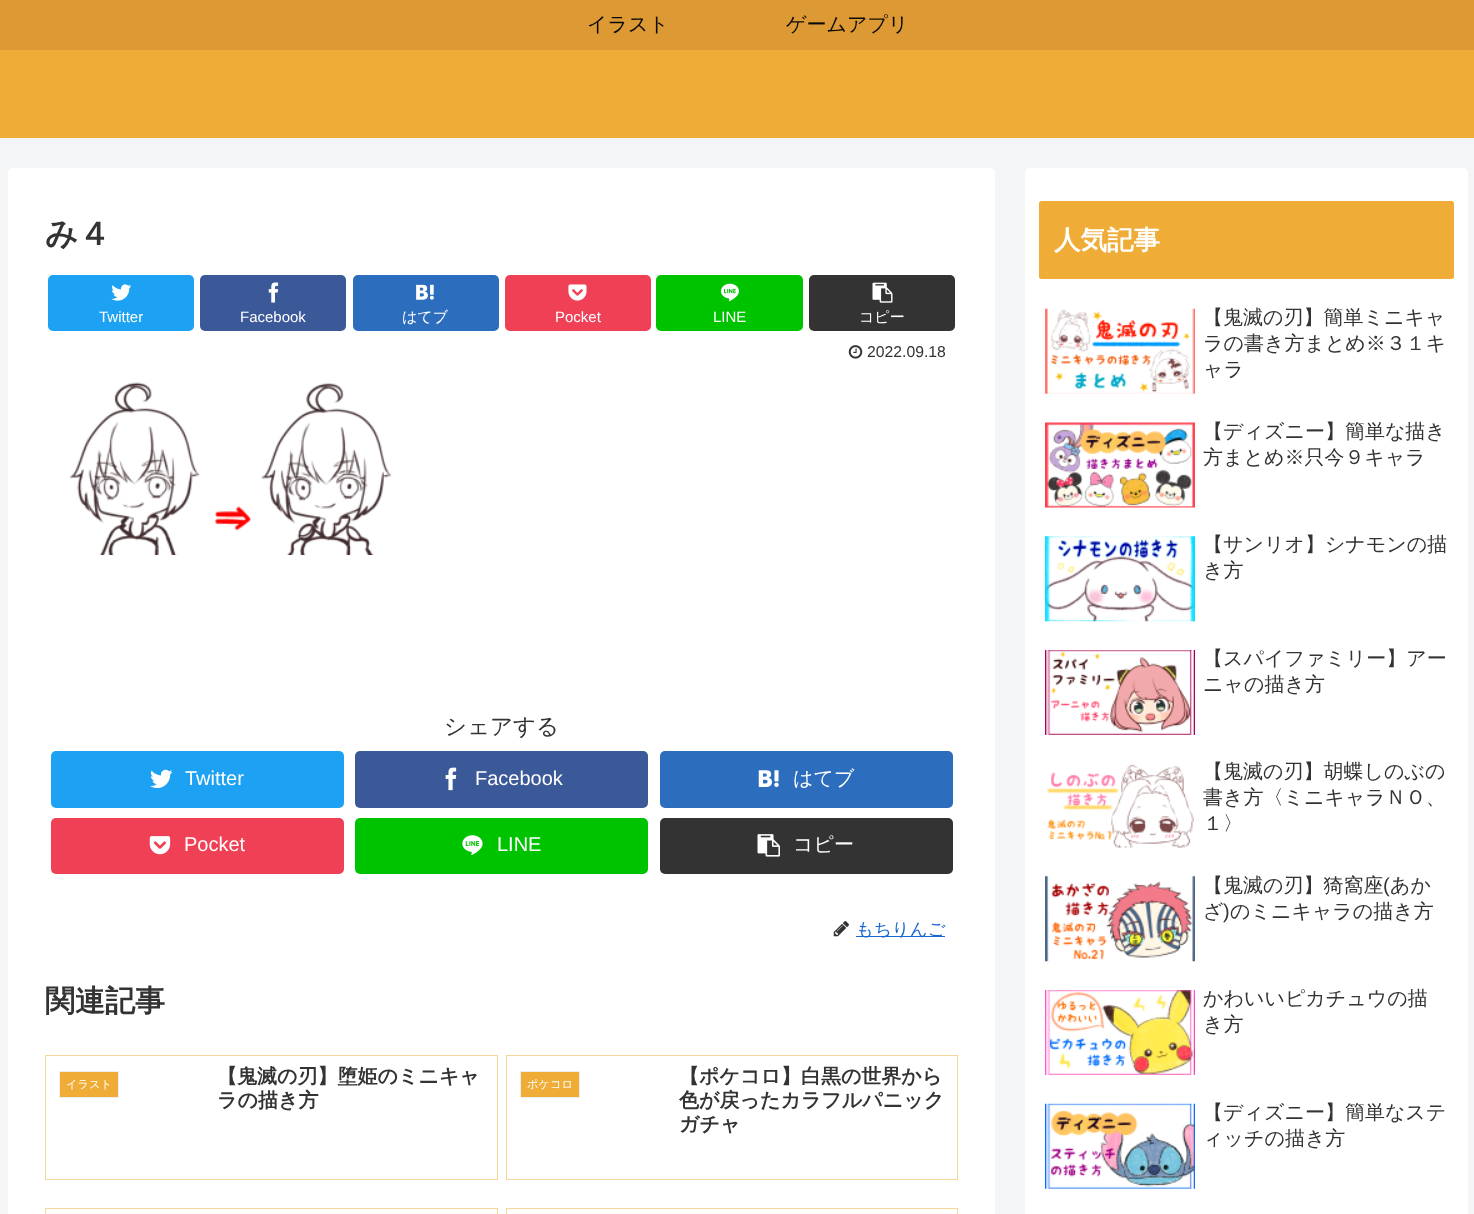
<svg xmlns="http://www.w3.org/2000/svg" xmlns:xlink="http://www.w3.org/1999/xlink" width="1474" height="1214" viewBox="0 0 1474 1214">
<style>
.cls-1{font:500 20px WenQuanYi Zen Hei;fill:#0a0a0a}
.cls-2{font:bold 32.5px WenQuanYi Zen Hei;fill:#333333}
.cls-3{font:15px Liberation Sans;fill:#ffffff}
.cls-4{font:500 15px WenQuanYi Zen Hei;fill:#ffffff}
.cls-5{font:15.75px Liberation Sans;fill:#333333}
.cls-6{font:500 22.5px WenQuanYi Zen Hei;fill:#333333}
.cls-7{font:20px Liberation Sans;fill:#ffffff}
.cls-8{font:500 20px WenQuanYi Zen Hei;fill:#ffffff}
.cls-9{font:500 17.5px WenQuanYi Zen Hei;fill:#1967d2}
.cls-10{font:bold 30px WenQuanYi Zen Hei;fill:#333333}
.cls-11{font:500 11.25px WenQuanYi Zen Hei;fill:#ffffff}
.cls-12{font:bold 20px WenQuanYi Zen Hei;fill:#333333}
.cls-13{font:bold 26.5px WenQuanYi Zen Hei;fill:#ffffff}
.cls-14{font:500 20px WenQuanYi Zen Hei;fill:#333333}
.cls-15{font:20px Liberation Sans;fill:#333333}
</style>
<rect width="100%" height="100%" fill="#f4f5f7"/>
<rect fill="#efac37" x="0" y="50" width="1474" height="88"/>
<rect fill="#dd9933" x="0" y="0" width="1474" height="50"/>
<rect fill="#ffffff" x="8" y="168" width="987" height="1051" rx="5"/>
<rect fill="#1da1f2" x="48" y="275" width="146" height="56" rx="5"/>
<image xlink:href="image0.png" x="111" y="284" width="21" height="17"/>
<rect fill="#3b5998" x="200" y="275" width="146" height="56" rx="5"/>
<image xlink:href="image1.png" x="268" y="282" width="11" height="21"/>
<rect fill="#2c6ebd" x="353" y="275" width="146" height="56" rx="5"/>
<image xlink:href="image2.png" x="416" y="284" width="18" height="16"/>
<rect fill="#ef4056" x="505" y="275" width="146" height="56" rx="5"/>
<image xlink:href="image3.png" x="568" y="284" width="19" height="17"/>
<rect fill="#00c300" x="656" y="275" width="147" height="56" rx="5"/>
<image xlink:href="image4.png" x="721" y="283" width="18" height="19"/>
<rect fill="#333333" x="809" y="275" width="146" height="56" rx="5"/>
<image xlink:href="image5.png" x="872" y="282" width="21" height="21"/>
<image xlink:href="image6.png" x="848" y="345" width="15" height="14"/>
<image xlink:href="image7.png" x="69" y="382" width="323" height="173"/>
<rect fill="#1da1f2" x="51" y="751" width="293" height="57" rx="5"/>
<image xlink:href="image8.png" x="150" y="769" width="23" height="20"/>
<rect fill="#3b5998" x="355" y="751" width="293" height="57" rx="5"/>
<image xlink:href="image9.png" x="445" y="767" width="12" height="24"/>
<rect fill="#2c6ebd" x="660" y="751" width="293" height="57" rx="5"/>
<image xlink:href="image10.png" x="758" y="770" width="21" height="17"/>
<rect fill="#ef4056" x="51" y="818" width="293" height="56" rx="5"/>
<image xlink:href="image11.png" x="149" y="836" width="22" height="19"/>
<rect fill="#00c300" x="355" y="818" width="293" height="56" rx="5"/>
<image xlink:href="image12.png" x="462" y="835" width="21" height="20"/>
<rect fill="#333333" x="660" y="818" width="293" height="56" rx="5"/>
<image xlink:href="image13.png" x="757" y="834" width="23" height="23"/>
<image xlink:href="image14.png" x="833" y="921" width="16" height="16"/>
<rect fill="#1967d2" x="856" y="936" width="89" height="1"/>
<rect fill="none" stroke="#f7d69b" x="45.5" y="1055.5" width="452" height="124"/>
<rect fill="#efac37" stroke="#eeeeee" x="59.5" y="1071.5" width="59" height="26"/>
<rect fill="none" stroke="#f7d69b" x="506.5" y="1055.5" width="451" height="124"/>
<rect fill="#efac37" stroke="#eeeeee" x="520.5" y="1071.5" width="59" height="26"/>
<rect fill="none" stroke="#f7d69b" x="45.5" y="1208.5" width="452" height="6"/>
<rect fill="none" stroke="#f7d69b" x="506.5" y="1208.5" width="451" height="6"/>
<rect fill="#ffffff" x="1025" y="168" width="443" height="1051" rx="5"/>
<rect fill="#efac37" x="1039" y="201" width="415" height="78" rx="2.5"/>
<image xlink:href="image15.png" x="1045" y="308" width="150" height="86"/>
<image xlink:href="image16.png" x="1045" y="422" width="150" height="86"/>
<image xlink:href="image17.png" x="1045" y="536" width="150" height="86"/>
<image xlink:href="image18.png" x="1045" y="650" width="150" height="85"/>
<image xlink:href="image19.png" x="1046" y="764" width="148" height="84"/>
<image xlink:href="image20.png" x="1045" y="876" width="150" height="86"/>
<image xlink:href="image21.png" x="1045" y="990" width="150" height="85"/>
<image xlink:href="image22.png" x="1045" y="1103" width="150" height="86"/>
<text class="cls-1" x="587" y="31">イラスト</text>
<text class="cls-1" x="786" y="31">ゲームアプリ</text>
<text class="cls-2" x="45" y="245">み４</text>
<text class="cls-3" x="99" y="322">Twitter</text>
<text class="cls-3" x="240" y="322">Facebook</text>
<text class="cls-4" x="402" y="322">はてブ</text>
<text class="cls-3" x="555" y="322">Pocket</text>
<text class="cls-3" x="713" y="322">LINE</text>
<text class="cls-4" x="859" y="322">コピー</text>
<text class="cls-5" x="867" y="357">2022.09.18</text>
<text class="cls-6" x="444" y="734">シェアする</text>
<text class="cls-7" x="185" y="785">Twitter</text>
<text class="cls-7" x="475" y="785">Facebook</text>
<text class="cls-8" x="793" y="785">はてブ</text>
<text class="cls-7" x="184" y="851">Pocket</text>
<text class="cls-7" x="497" y="851">LINE</text>
<text class="cls-8" x="793" y="851">コピー</text>
<text class="cls-9" x="856" y="935">もちりんご</text>
<text class="cls-10" x="45" y="1011">関連記事</text>
<text class="cls-11" x="66" y="1088">イラスト</text>
<text class="cls-12"><tspan x="217" y="1083">【鬼滅の刃】堕姫のミニキャ</tspan><tspan x="217" y="1107">ラの描き方</tspan></text>
<text class="cls-11" x="527" y="1088">ポケコロ</text>
<text class="cls-12"><tspan x="679" y="1083">【ポケコロ】白黒の世界から</tspan><tspan x="679" y="1107">色が戻ったカラフルパニック</tspan><tspan x="679" y="1131">ガチャ</tspan></text>
<text class="cls-13" x="1054" y="249">人気記事</text>
<text class="cls-14"><tspan x="1203" y="324">【鬼滅の刃】簡単ミニキャ</tspan><tspan x="1203" y="350">ラの書き方まとめ※３１キ</tspan><tspan x="1203" y="376">ャラ</tspan></text>
<text class="cls-14"><tspan x="1203" y="438">【ディズニー】簡単な描き</tspan><tspan x="1203" y="464">方まとめ※只今９キャラ</tspan></text>
<text class="cls-14"><tspan x="1203" y="551">【サンリオ】シナモンの描</tspan><tspan x="1203" y="577">き方</tspan></text>
<text class="cls-14"><tspan x="1203" y="665">【スパイファミリー】アー</tspan><tspan x="1203" y="691">ニャの描き方</tspan></text>
<text class="cls-14"><tspan x="1203" y="778">【鬼滅の刃】胡蝶しのぶの</tspan><tspan x="1203" y="804">書き方〈ミニキャラＮＯ、</tspan><tspan x="1203" y="830">１〉</tspan></text>
<text class="cls-14" x="1203" y="892">【鬼滅の刃】猗窩座</text>
<text class="cls-15" x="1383" y="892">(</text>
<text class="cls-14" x="1390" y="892">あか</text>
<text class="cls-14" x="1203" y="918">ざ</text>
<text class="cls-15" x="1223" y="918">)</text>
<text class="cls-14" x="1230" y="918">のミニキャラの描き方</text>
<text class="cls-14"><tspan x="1203" y="1005">かわいいピカチュウの描</tspan><tspan x="1203" y="1031">き方</tspan></text>
<text class="cls-14"><tspan x="1203" y="1119">【ディズニー】簡単なステ</tspan><tspan x="1203" y="1145">ィッチの描き方</tspan></text>
</svg>
